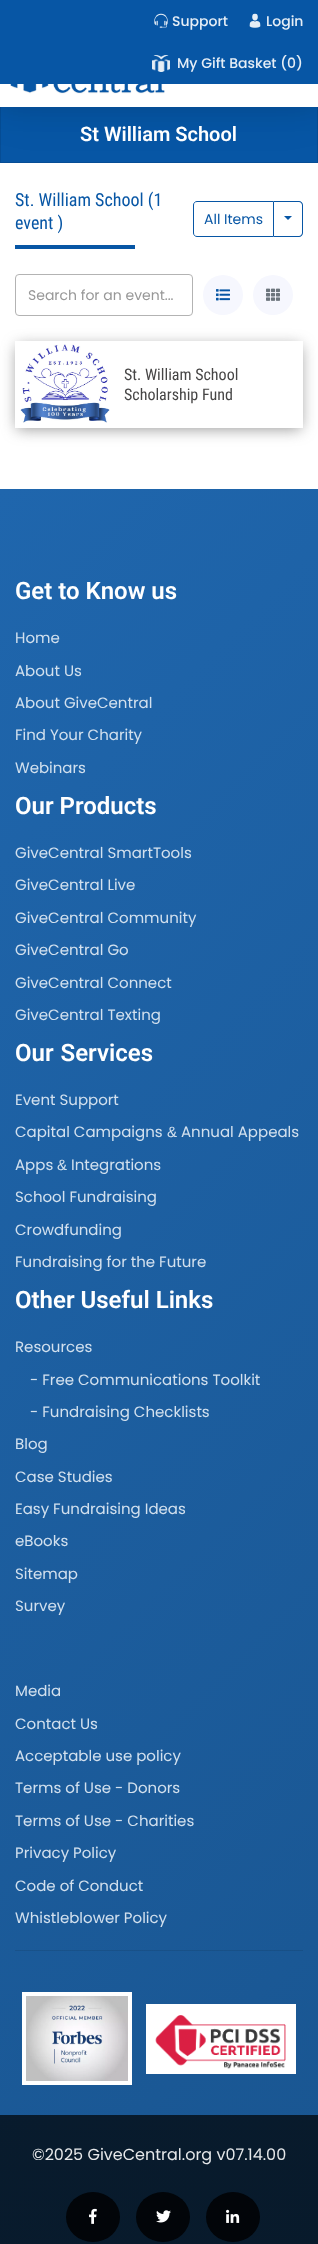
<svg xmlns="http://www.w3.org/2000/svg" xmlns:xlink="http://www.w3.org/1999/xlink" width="318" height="2244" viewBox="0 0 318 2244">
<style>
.cls-1{font:500 14px Poppins;fill:#e6eef6}
.cls-2{font:600 20px Roboto;fill:#ffffff}
.cls-3{font:18px Roboto Condensed;fill:#0756a5}
.cls-4{font:14px Poppins;fill:#0756a5}
.cls-5{font:14px Poppins;fill:#989898}
.cls-6{font:16px Roboto Condensed;fill:#464545}
.cls-7{font:600 24px Roboto;fill:#ffffff}
.cls-8{font:15px Poppins;fill:#d2e0ee}
.cls-9{font:15px Liberation Sans;fill:#d2e0ee}
.cls-10{font:16px Poppins;fill:#e6e8ea}
</style>
<defs>
<clipPath id="clip1"><path d="M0 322H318V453H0ZM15 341H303V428H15Z" clip-rule="evenodd"/></clipPath>
<linearGradient id="g1" gradientUnits="userSpaceOnUse" x1="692" y1="1930" x2="-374" y2="863"><stop offset="0" stop-color="#195590"/><stop offset="1" stop-color="#1f66ad"/></linearGradient>
<linearGradient id="g2" gradientUnits="userSpaceOnUse" x1="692" y1="1930" x2="-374" y2="863"><stop offset="0" stop-color="#081a2b"/><stop offset="1" stop-color="#091f34"/></linearGradient>
<linearGradient id="g3" gradientUnits="userSpaceOnUse" x1="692" y1="1930" x2="-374" y2="863"><stop offset="0" stop-color="#174d82"/><stop offset="1" stop-color="#1c5c9c"/></linearGradient>
</defs>
<rect width="100%" height="100%" fill="#ffffff"/>
<rect fill="#0756a5" x="1" y="107" width="316" height="55"/>
<rect fill="none" stroke="#064d95" x="0.5" y="105.5" width="317" height="57"/>
<rect fill="#000000" fill-opacity="0.06" filter="blur(24.5px)" x="0" y="39" width="318" height="70"/>
<rect fill="#000000" fill-opacity="0.1" filter="blur(11.5px)" x="0" y="39" width="318" height="70"/>
<rect fill="#ffffff" x="0" y="84" width="318" height="23"/>
<image xlink:href="image0.png" x="10" y="84" width="155" height="10"/>
<rect fill="#0756a5" x="0" y="0" width="318" height="84"/>
<image xlink:href="image1.png" x="154" y="13" width="14" height="15"/>
<image xlink:href="image2.png" x="249" y="13" width="12" height="15"/>
<image xlink:href="image3.png" x="152" y="55" width="18" height="17"/>
<rect fill="#0756a5" x="15" y="245" width="120" height="4"/>
<path fill="none" stroke="#0756a5" d="M197 201.5H273.5V236.5H197C195 236.5 193.5 235 193.5 233V205C193.5 203 195 201.5 197 201.5Z"/>
<path fill="#0756a5" fill-rule="evenodd" d="M274 201H299C301 201 303 203 303 205V233C303 235 301 237 299 237H274ZM274 202H299C300.5 202 302 203.5 302 205V233C302 234.5 300.5 236 299 236H274Z"/>
<path fill="#0756a5" d="M284 216H292L288 220Z"/>
<rect fill="none" stroke="#b3b3b3" x="15.5" y="274.5" width="177" height="41" rx="3.5"/>
<circle fill="#f6f7fe" cx="223" cy="295" r="20"/>
<image xlink:href="image4.png" x="216" y="289" width="14" height="12"/>
<circle fill="#f6f7fe" cx="273" cy="295" r="20"/>
<image xlink:href="image5.png" x="266" y="288" width="14" height="13"/>
<g clip-path="url(#clip1)">
<rect fill="#5e5e5e" fill-opacity="0.65" filter="blur(7.5px)" x="17" y="346" width="284" height="83"/>
</g>
<image xlink:href="image6.png" x="20" y="344" width="90" height="79"/>
<rect fill="url(#g1)" x="0" y="489" width="318" height="1626"/>
<rect fill="url(#g2)" x="0" y="2115" width="318" height="129"/>
<rect fill="url(#g3)" x="15" y="1950" width="288" height="1"/>
<rect fill="#ffffff" x="22" y="1992" width="110" height="93"/>
<image xlink:href="image7.png" x="26" y="1996" width="102" height="85"/>
<rect fill="#ffffff" x="146" y="2004" width="150" height="70"/>
<image xlink:href="image8.png" x="155" y="2015" width="131" height="54"/>
<ellipse fill="#020509" cx="93" cy="2217" rx="27" ry="25"/>
<image xlink:href="image9.png" x="89" y="2208" width="8" height="16"/>
<ellipse fill="#020509" cx="163" cy="2217" rx="27" ry="25"/>
<image xlink:href="image10.png" x="156" y="2210" width="15" height="13"/>
<ellipse fill="#020509" cx="233" cy="2217" rx="27" ry="25"/>
<image xlink:href="image11.png" x="226" y="2209" width="14" height="14"/>
<text class="cls-1" x="172" y="26">Support</text>
<text class="cls-1" x="266" y="26">Login</text>
<text class="cls-1" x="177" y="68">My Gift Basket (0)</text>
<text class="cls-2" x="80" y="141">St William School</text>
<text class="cls-3"><tspan x="15" y="206">St. William School (1</tspan><tspan x="15" y="229">event )</tspan></text>
<text class="cls-4" x="204" y="224">All Items</text>
<text class="cls-5" x="28" y="300">Search for an event...</text>
<text class="cls-6"><tspan x="124" y="380">St. William School</tspan><tspan x="124" y="400">Scholarship Fund</tspan></text>
<text class="cls-7" x="15" y="599">Get to Know us</text>
<text class="cls-8" x="15" y="643">Home</text>
<text class="cls-8" x="15" y="676">About Us</text>
<text class="cls-8" x="15" y="708">About GiveCentral</text>
<text class="cls-8" x="15" y="740">Find Your Charity</text>
<text class="cls-8" x="15" y="773">Webinars</text>
<text class="cls-7" x="15" y="814">Our Products</text>
<text class="cls-8" x="15" y="858">GiveCentral SmartTools</text>
<text class="cls-8" x="15" y="890">GiveCentral Live</text>
<text class="cls-8" x="15" y="923">GiveCentral Community</text>
<text class="cls-8" x="15" y="955">GiveCentral Go</text>
<text class="cls-8" x="15" y="988">GiveCentral Connect</text>
<text class="cls-8" x="15" y="1020">GiveCentral Texting</text>
<text class="cls-7" x="15" y="1061" word-spacing="1">Our Services</text>
<text class="cls-8" x="15" y="1105">Event Support</text>
<text class="cls-8" x="15" y="1137">Capital Campaigns</text>
<text class="cls-9" x="167" y="1137">&amp;</text>
<text class="cls-8" x="181" y="1137">Annual Appeals</text>
<text class="cls-8" x="15" y="1170">Apps</text>
<text class="cls-9" x="57" y="1170">&amp;</text>
<text class="cls-8" x="71" y="1170">Integrations</text>
<text class="cls-8" x="15" y="1202">School Fundraising</text>
<text class="cls-8" x="15" y="1235">Crowdfunding</text>
<text class="cls-8" x="15" y="1267">Fundraising for the Future</text>
<text class="cls-7" x="15" y="1308">Other Useful Links</text>
<text class="cls-8" x="15" y="1352">Resources</text>
<text class="cls-8" x="30" y="1385">- Free Communications Toolkit</text>
<text class="cls-8" x="30" y="1417">- Fundraising Checklists</text>
<text class="cls-8" x="15" y="1449">Blog</text>
<text class="cls-8" x="15" y="1482">Case Studies</text>
<text class="cls-8" x="15" y="1514">Easy Fundraising Ideas</text>
<text class="cls-8" x="15" y="1546">eBooks</text>
<text class="cls-8" x="15" y="1579">Sitemap</text>
<text class="cls-8" x="15" y="1611">Survey</text>
<text class="cls-8" x="15" y="1696">Media</text>
<text class="cls-8" x="15" y="1729">Contact Us</text>
<text class="cls-8" x="15" y="1761">Acceptable use policy</text>
<text class="cls-8" x="15" y="1793">Terms of Use - Donors</text>
<text class="cls-8" x="15" y="1826">Terms of Use - Charities</text>
<text class="cls-8" x="15" y="1858">Privacy Policy</text>
<text class="cls-8" x="15" y="1891">Code of Conduct</text>
<text class="cls-8" x="15" y="1923">Whistleblower Policy</text>
<text class="cls-10" x="32" y="2160">©2025 GiveCentral.org v07.14.00</text>
</svg>
